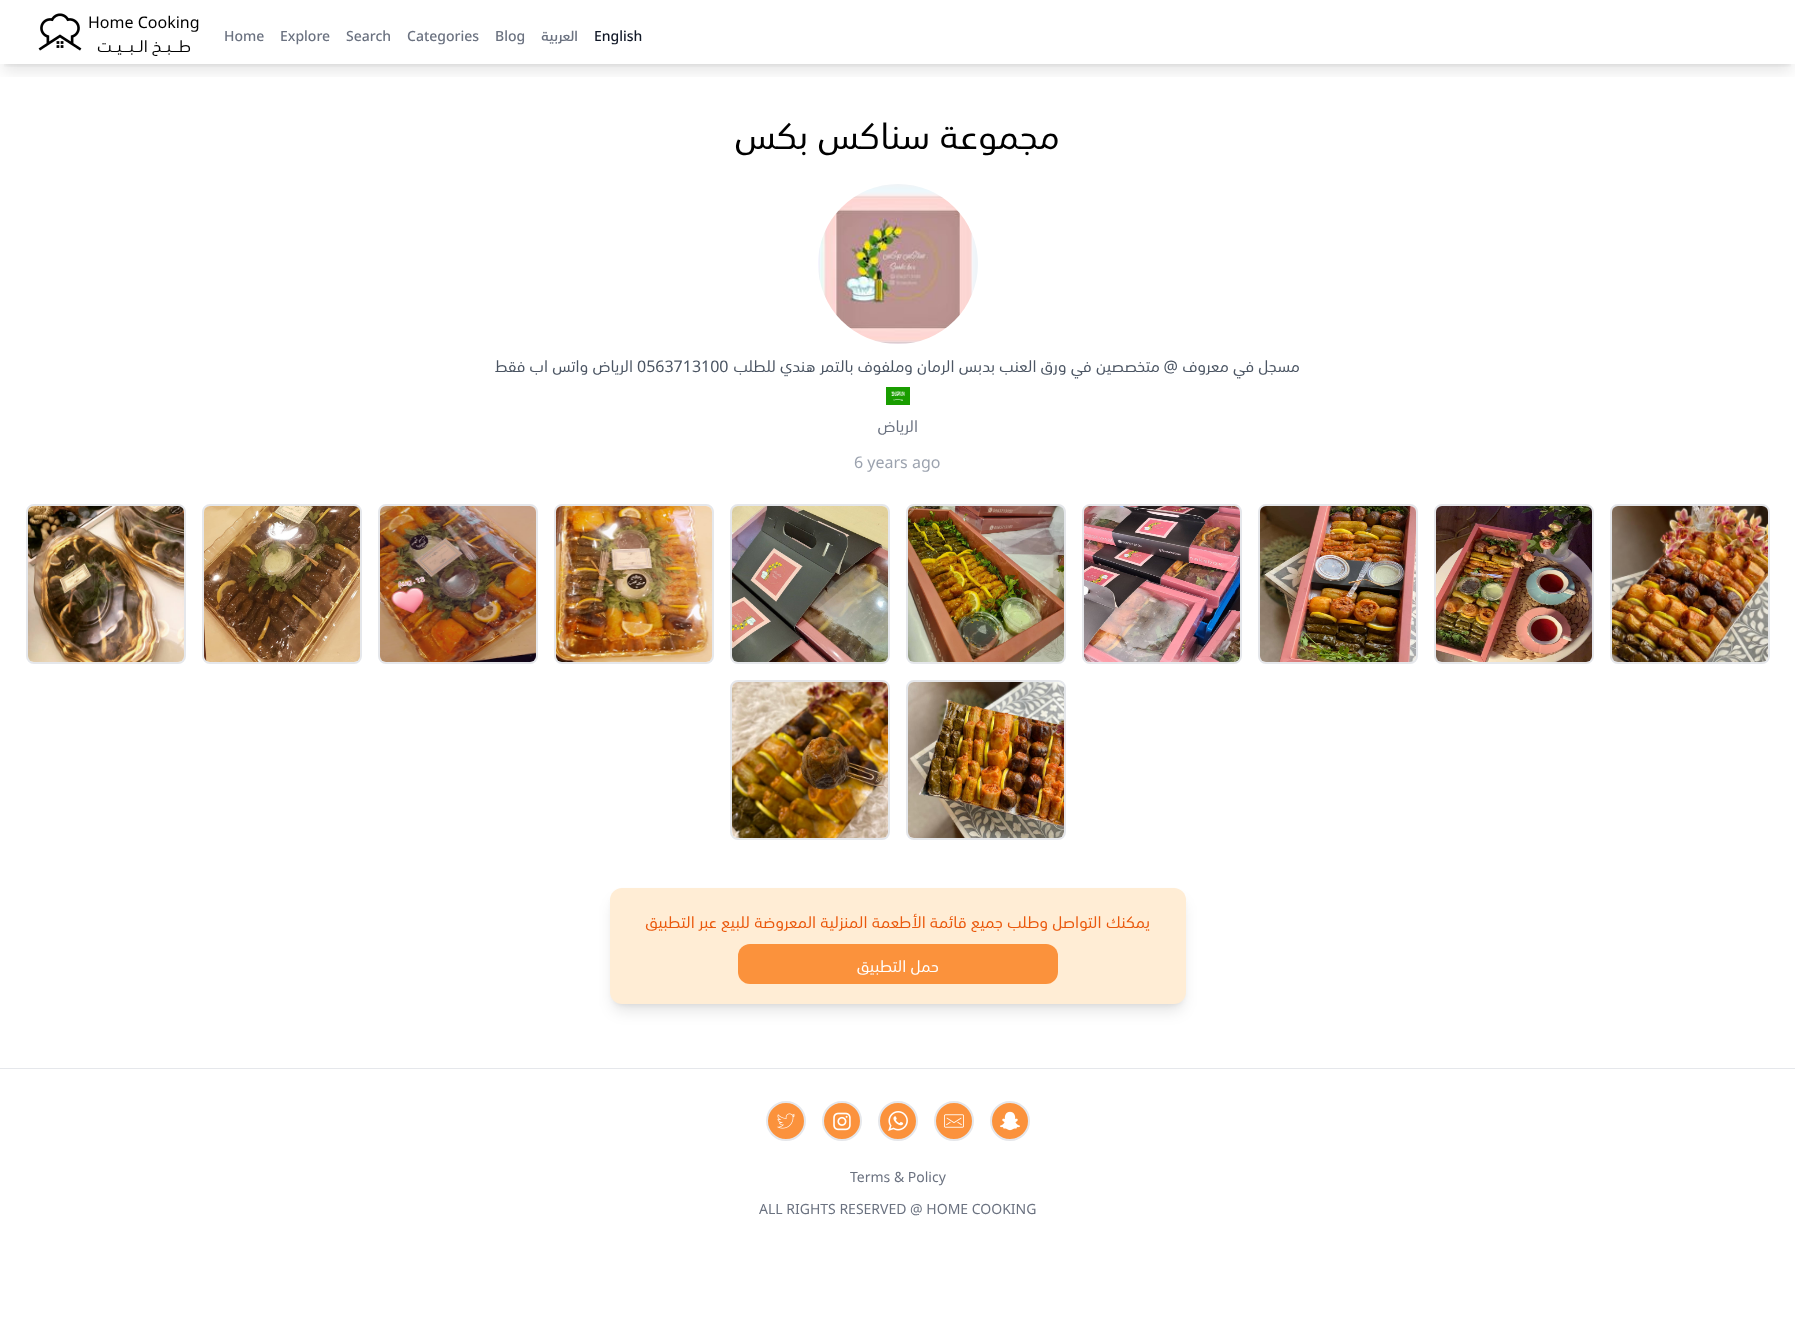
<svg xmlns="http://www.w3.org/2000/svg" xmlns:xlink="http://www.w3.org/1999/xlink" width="1795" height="1321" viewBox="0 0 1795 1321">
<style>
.cls-1{font:500 14px Noto Sans;fill:#111827}
.cls-2{font:500 14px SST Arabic;direction:rtl;fill:#6b7280}
.cls-3{font:500 14px Noto Sans;fill:#6b7280}
.cls-4{font:16px Noto Sans;fill:#000000}
.cls-5{font:16px SST Arabic;direction:rtl;fill:#000000}
.cls-6{font:36px SST Arabic;direction:rtl;fill:#000000}
.cls-7{font:16px SST Arabic;direction:rtl;fill:#4b5563}
.cls-8{font:16px Noto Sans;direction:rtl;fill:#4b5563}
.cls-9{font:16px Noto Sans;fill:#4b5563}
.cls-10{font:16px SST Arabic;direction:rtl;fill:#6b7280}
.cls-11{font:16px Noto Sans;fill:#9ca3af}
.cls-12{font:16px SST Arabic;direction:rtl;fill:#ea580c}
.cls-13{font:16px SST Arabic;direction:rtl;fill:#ffffff}
.cls-14{font:14px Noto Sans;fill:#6b7280}
</style>
<defs>
<clipPath id="clip1"><rect x="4" y="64" width="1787" height="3"/></clipPath>
<clipPath id="clip2"><rect x="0" y="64" width="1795" height="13"/></clipPath>
</defs>
<rect width="100%" height="100%" fill="#ffffff"/>
<g clip-path="url(#clip1)">
<rect fill="#000000" fill-opacity="0.1" filter="blur(3px)" x="4" y="8" width="1787" height="56"/>
</g>
<g clip-path="url(#clip2)">
<rect fill="#000000" fill-opacity="0.1" filter="blur(7.5px)" x="3" y="13" width="1789" height="58"/>
</g>
<image xlink:href="image0.png" x="38" y="13" width="44" height="38"/>
<image xlink:href="image1.png" x="818" y="184" width="160" height="160"/>
<image xlink:href="image2.png" x="886" y="387" width="24" height="18"/>
<rect fill="none" stroke="#e5e7eb" stroke-width="2" x="1611" y="505" width="158" height="158" rx="7"/>
<image xlink:href="image3.png" x="1612" y="506" width="156" height="156"/>
<rect fill="none" stroke="#e5e7eb" stroke-width="2" x="1435" y="505" width="158" height="158" rx="7"/>
<image xlink:href="image4.png" x="1436" y="506" width="156" height="156"/>
<rect fill="none" stroke="#e5e7eb" stroke-width="2" x="1259" y="505" width="158" height="158" rx="7"/>
<image xlink:href="image5.png" x="1260" y="506" width="156" height="156"/>
<rect fill="none" stroke="#e5e7eb" stroke-width="2" x="1083" y="505" width="158" height="158" rx="7"/>
<image xlink:href="image6.png" x="1084" y="506" width="156" height="156"/>
<rect fill="none" stroke="#e5e7eb" stroke-width="2" x="907" y="505" width="158" height="158" rx="7"/>
<image xlink:href="image7.png" x="908" y="506" width="156" height="156"/>
<rect fill="none" stroke="#e5e7eb" stroke-width="2" x="731" y="505" width="158" height="158" rx="7"/>
<image xlink:href="image8.png" x="732" y="506" width="156" height="156"/>
<rect fill="none" stroke="#e5e7eb" stroke-width="2" x="555" y="505" width="158" height="158" rx="7"/>
<image xlink:href="image9.png" x="556" y="506" width="156" height="156"/>
<rect fill="none" stroke="#e5e7eb" stroke-width="2" x="379" y="505" width="158" height="158" rx="7"/>
<image xlink:href="image10.png" x="380" y="506" width="156" height="156"/>
<rect fill="none" stroke="#e5e7eb" stroke-width="2" x="203" y="505" width="158" height="158" rx="7"/>
<image xlink:href="image11.png" x="204" y="506" width="156" height="156"/>
<rect fill="none" stroke="#e5e7eb" stroke-width="2" x="27" y="505" width="158" height="158" rx="7"/>
<image xlink:href="image12.png" x="28" y="506" width="156" height="156"/>
<rect fill="none" stroke="#e5e7eb" stroke-width="2" x="907" y="681" width="158" height="158" rx="7"/>
<image xlink:href="image13.png" x="908" y="682" width="156" height="156"/>
<rect fill="none" stroke="#e5e7eb" stroke-width="2" x="731" y="681" width="158" height="158" rx="7"/>
<image xlink:href="image14.png" x="732" y="682" width="156" height="156"/>
<rect fill="#000000" fill-opacity="0.1" filter="blur(3px)" x="614" y="896" width="568" height="108" rx="8"/>
<rect fill="#000000" fill-opacity="0.1" filter="blur(7.5px)" x="613" y="901" width="570" height="110" rx="9"/>
<rect fill="#ffedd5" x="610" y="888" width="576" height="116" rx="12"/>
<rect fill="#fb923c" x="738" y="944" width="320" height="40" rx="12"/>
<rect fill="#e5e7eb" x="0" y="1068" width="1795" height="1"/>
<circle fill="#fb923c" stroke="#e5e7eb" stroke-width="2" cx="1010" cy="1121" r="19"/>
<image xlink:href="image15.png" x="1000" y="1111" width="20" height="20"/>
<circle fill="#fb923c" stroke="#e5e7eb" stroke-width="2" cx="954" cy="1121" r="19"/>
<image xlink:href="image16.png" x="944" y="1114" width="20" height="14"/>
<circle fill="#fb923c" stroke="#e5e7eb" stroke-width="2" cx="898" cy="1121" r="19"/>
<image xlink:href="image17.png" x="888" y="1111" width="20" height="20"/>
<circle fill="#fb923c" stroke="#e5e7eb" stroke-width="2" cx="842" cy="1121" r="19"/>
<image xlink:href="image18.png" x="833" y="1112" width="18" height="19"/>
<circle fill="#fb923c" stroke="#e5e7eb" stroke-width="2" cx="786" cy="1121" r="19"/>
<image xlink:href="image19.png" x="777" y="1113" width="19" height="16"/>
<text class="cls-1" x="594" y="41">English</text>
<text class="cls-2" x="578" y="41">العربية</text>
<text class="cls-3" x="495" y="41">Blog</text>
<text class="cls-3" x="407" y="41">Categories</text>
<text class="cls-3" x="346" y="41">Search</text>
<text class="cls-3" x="280" y="41">Explore</text>
<text class="cls-3" x="224" y="41">Home</text>
<text class="cls-4" x="88" y="28">Home Cooking</text>
<text class="cls-5" x="191" y="52">طـــبــخ الــبـــيــت</text>
<text class="cls-6" x="1060" y="149">مجموعة سناكس بكس</text>
<text class="cls-7" x="1300" y="372">مسجل في معروف</text>
<text class="cls-8" x="1178" y="372">@</text>
<text class="cls-7" x="1160" y="372">متخصصين في ورق العنب بدبس الرمان وملفوف بالتمر هندي للطلب</text>
<text class="cls-9" x="637" y="372">0563713100</text>
<text class="cls-7" x="633" y="372">الرياض واتس اب فقط</text>
<text class="cls-10" x="918" y="432">الرياض</text>
<text class="cls-11" x="854" y="468">6 years ago</text>
<text class="cls-12" x="1150" y="928">يمكنك التواصل وطلب جميع قائمة الأطعمة المنزلية المعروضة للبيع عبر التطبيق</text>
<text class="cls-13" x="939" y="972">حمل التطبيق</text>
<text class="cls-14" x="850" y="1182">Terms &amp; Policy</text>
<text class="cls-14" x="759" y="1214">ALL RIGHTS RESERVED @ HOME COOKING</text>
</svg>
